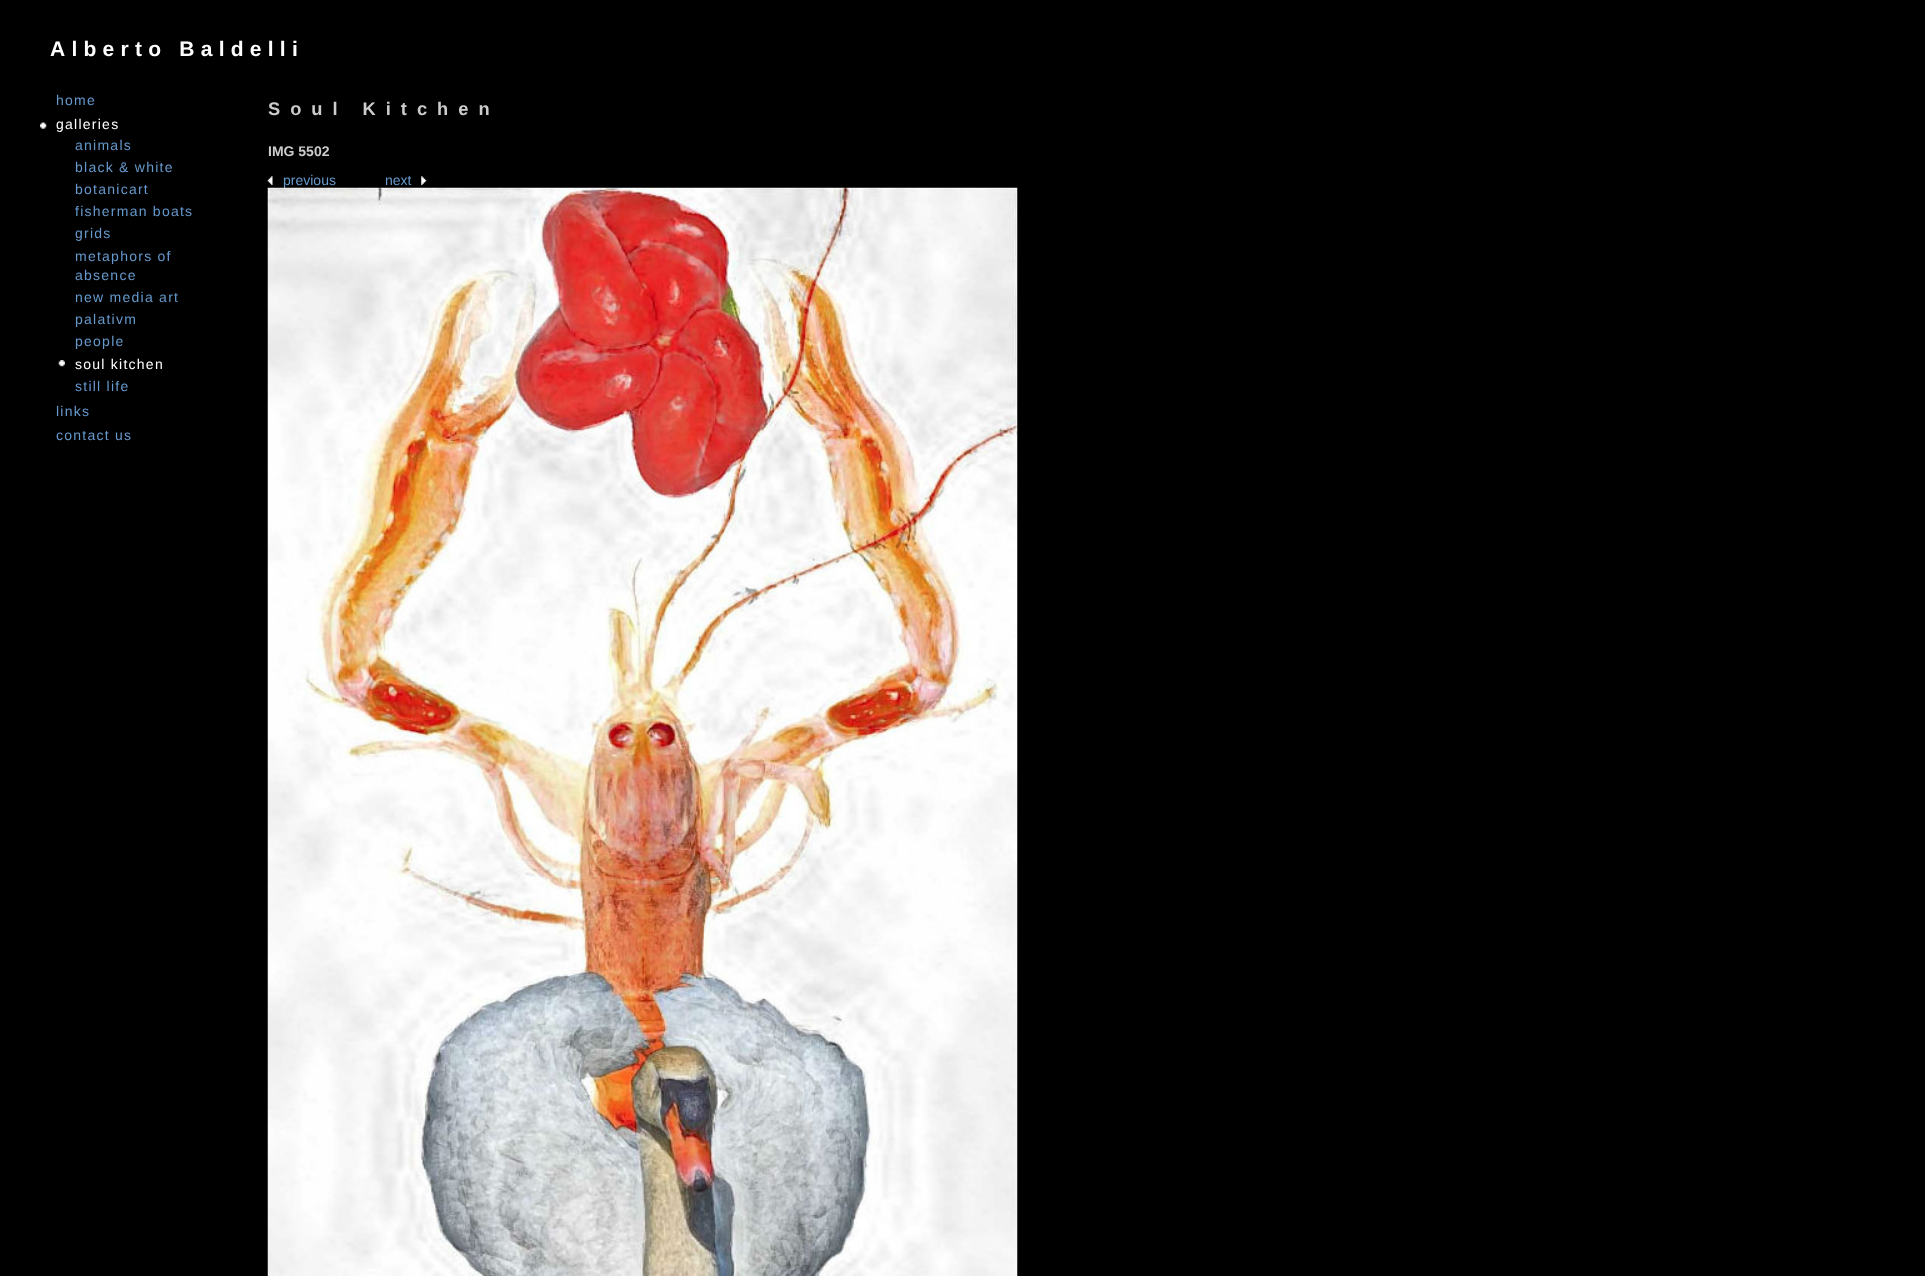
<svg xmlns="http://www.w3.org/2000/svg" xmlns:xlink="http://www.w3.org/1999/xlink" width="1925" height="1276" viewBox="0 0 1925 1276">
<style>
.cls-1{font:bold 21px Liberation Sans;letter-spacing:6.25px;fill:#ffffff}
.cls-2{font:14px Liberation Sans;letter-spacing:1.25px;fill:#6699cc}
.cls-3{font:14px Liberation Sans;letter-spacing:1.25px;fill:#ffffff}
.cls-4{font:bold 18.25px Liberation Sans;letter-spacing:10px;fill:#cccccc}
.cls-5{font:bold 14px Liberation Sans;fill:#cccccc}
.cls-6{font:14px Liberation Sans;fill:#6699cc}
</style>
<rect width="100%" height="100%" fill="#000000"/>
<image xlink:href="image0.png" x="40" y="122" width="7" height="7"/>
<image xlink:href="image1.png" x="267" y="176" width="6" height="9"/>
<image xlink:href="image2.png" x="421" y="176" width="6" height="9"/>
<image xlink:href="image4.png" x="58" y="360" width="7" height="7"/>
<text class="cls-1" x="50" y="56">Alberto Baldelli</text>
<text class="cls-2" x="56" y="105">home</text>
<text class="cls-3" x="56" y="129">galleries</text>
<text class="cls-2"><tspan x="56" y="416">links</tspan><tspan x="56" y="440">contact us</tspan></text>
<text class="cls-4" x="268" y="115">Soul Kitchen</text>
<text class="cls-5" x="268" y="156">IMG 5502</text>
<text class="cls-6" x="283" y="185">previous</text>
<text class="cls-6" x="385" y="185">next</text>
<image xlink:href="image3.png" x="267" y="187" width="751" height="1089"/>
<text class="cls-2"><tspan x="75" y="150">animals</tspan><tspan x="75" y="172">black &amp; white</tspan><tspan x="75" y="194">botanicart</tspan><tspan x="75" y="216">fisherman boats</tspan><tspan x="75" y="238">grids</tspan><tspan x="75" y="261">metaphors of</tspan><tspan x="75" y="280">absence</tspan><tspan x="75" y="302">new media art</tspan><tspan x="75" y="324">palativm</tspan><tspan x="75" y="346">people</tspan></text>
<text class="cls-3" x="75" y="369">soul kitchen</text>
<text class="cls-2" x="75" y="391">still life</text>
</svg>
